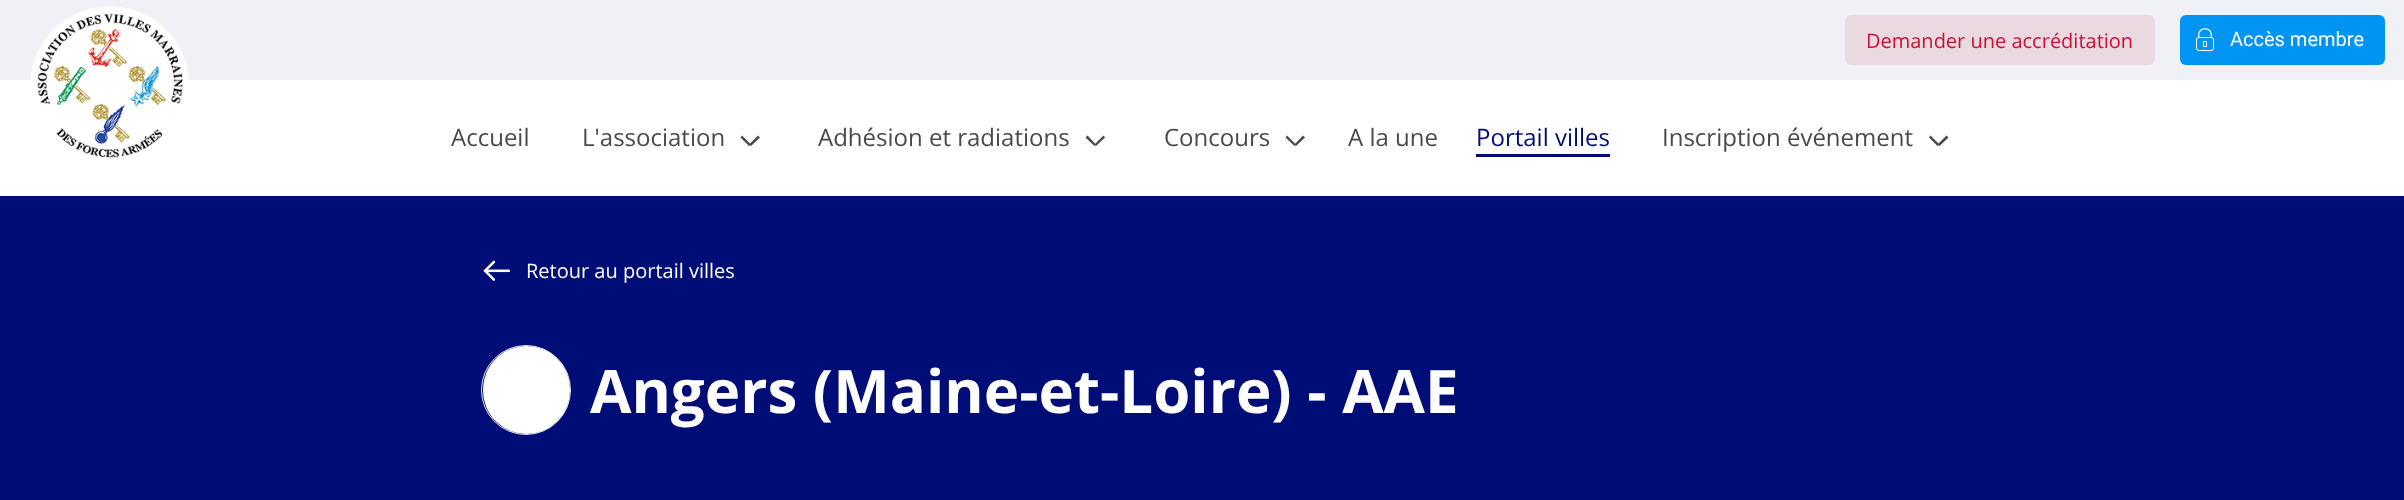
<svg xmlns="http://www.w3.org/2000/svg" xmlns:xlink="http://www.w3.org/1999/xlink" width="2404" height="500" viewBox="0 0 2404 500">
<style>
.cls-1{font:20px Open Sans;fill:#cc0f35}
.cls-2{font:20px Roboto;fill:#ffffff}
.cls-3{font:24px Open Sans;fill:#4a4a4a}
.cls-4{font:24px Open Sans;fill:#000d77}
.cls-5{font:20px Open Sans;fill:#ffffff}
.cls-6{font:bold 60px Open Sans;fill:#ffffff}
</style>
<rect width="100%" height="100%" fill="#ffffff"/>
<rect fill="#f0f1f7" x="0" y="0" width="2404" height="80"/>
<image xlink:href="image0.png" x="30" y="6" width="159" height="152"/>
<rect fill="#ead9e0" x="1845" y="15" width="310" height="50" rx="6"/>
<rect fill="#0095f3" x="2180" y="15" width="205" height="50" rx="6"/>
<image xlink:href="image1.png" x="2196" y="28" width="18" height="23"/>
<path fill="#4a4a4a" d="M749 144.5L758 135.5L760 137.5L751 146Z"/>
<path fill="#4a4a4a" d="M740.5 137.5L742 135.5L751 144.5L749 146Z"/>
<path fill="#4a4a4a" d="M1094.5 144.5L1103.5 135.5L1105 137.5L1096 146Z"/>
<path fill="#4a4a4a" d="M1085.5 137.5L1087.5 135.5L1096 144.5L1094.5 146Z"/>
<path fill="#4a4a4a" d="M1294.5 144.5L1303 135.5L1305 137.5L1296 146Z"/>
<path fill="#4a4a4a" d="M1285.5 137.5L1287 135.5L1296 144.5L1294.5 146Z"/>
<rect fill="#000d77" x="1476" y="154" width="134" height="3"/>
<path fill="#4a4a4a" d="M1937.5 144.5L1946.5 135.5L1948.5 137.5L1939.5 146Z"/>
<path fill="#4a4a4a" d="M1929 137.5L1930.5 135.5L1939.5 144.5L1937.5 146Z"/>
<rect fill="#000d77" x="0" y="196" width="2404" height="304"/>
<image xlink:href="image2.png" x="483" y="260" width="28" height="21"/>
<circle fill="none" stroke="#e9e9e9" cx="526" cy="390" r="44.5"/>
<rect fill="#ffffff" x="483" y="346" width="87" height="88" rx="43.5"/>
<text class="cls-1" x="1866" y="48">Demander une accréditation</text>
<text class="cls-2" x="2230" y="46">Accès membre</text>
<text class="cls-3" x="451" y="146">Accueil</text>
<text class="cls-3" x="582" y="146">L'association</text>
<text class="cls-3" x="818" y="146">Adhésion et radiations</text>
<text class="cls-3" x="1164" y="146">Concours</text>
<text class="cls-3" x="1348" y="146">A la une</text>
<text class="cls-4" x="1476" y="146">Portail villes</text>
<text class="cls-3" x="1662" y="146">Inscription événement</text>
<text class="cls-5" x="526" y="278">Retour au portail villes</text>
<text class="cls-6" x="590" y="413">Angers (Maine-et-Loire) - AAE</text>
</svg>
